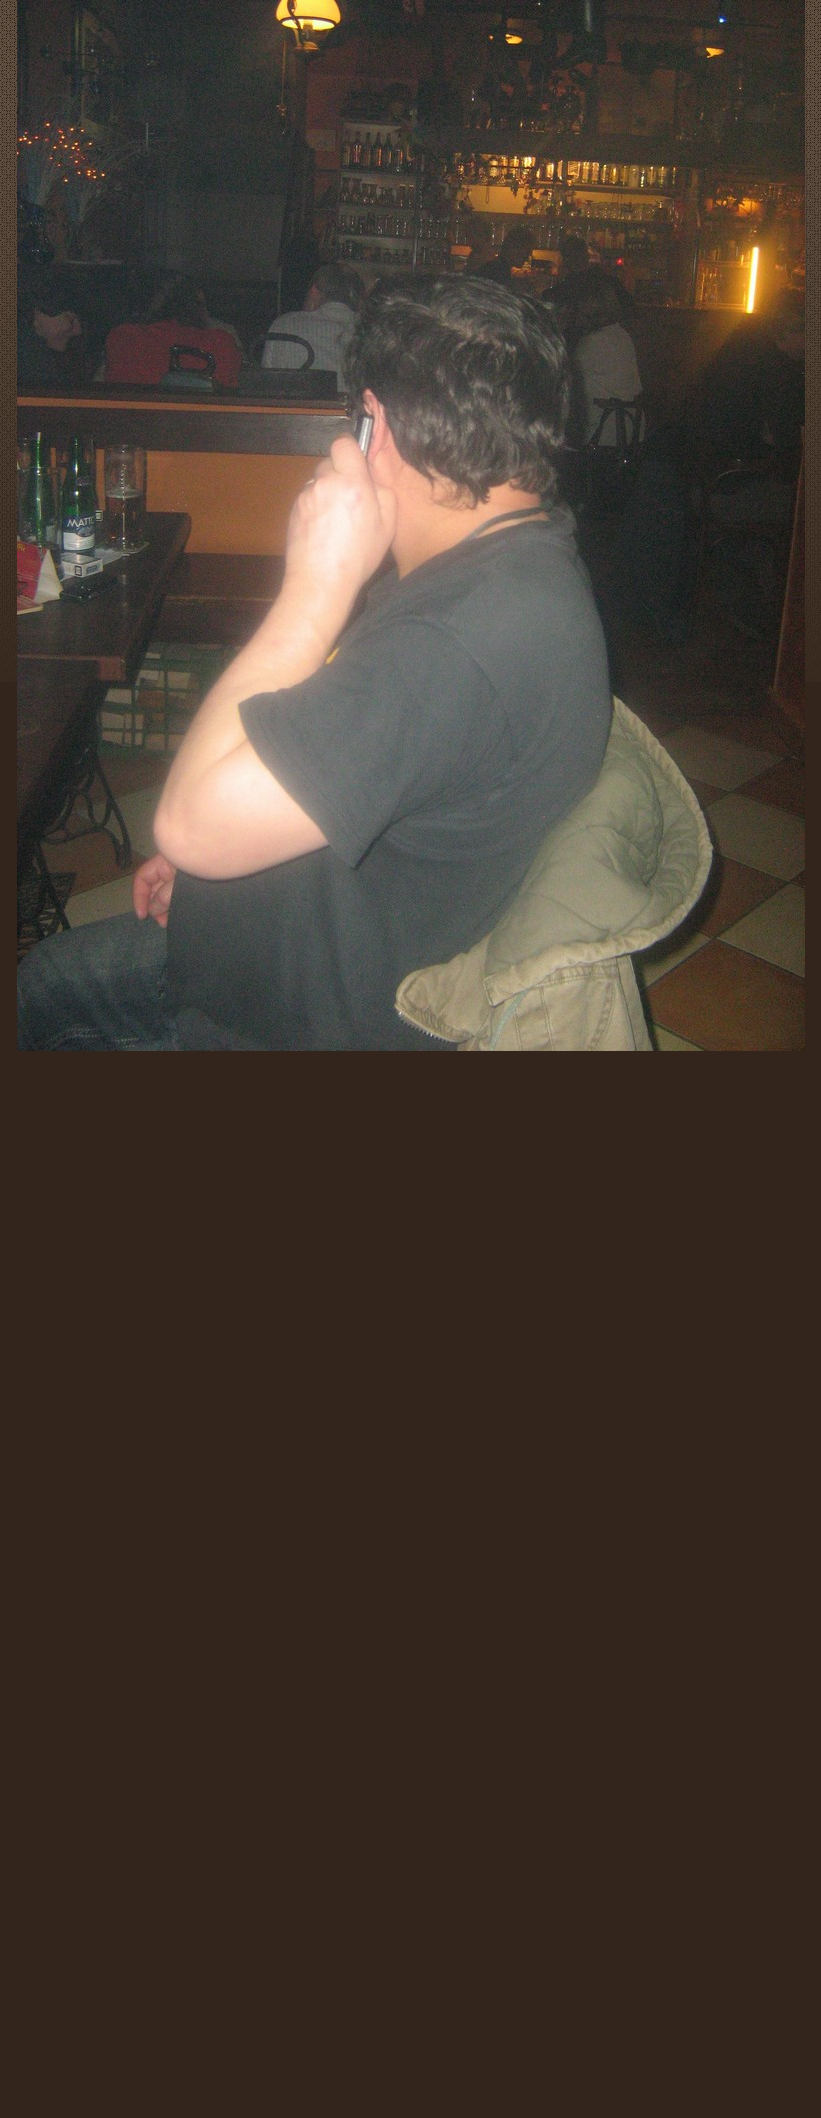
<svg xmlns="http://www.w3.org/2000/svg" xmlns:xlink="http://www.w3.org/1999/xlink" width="821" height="2118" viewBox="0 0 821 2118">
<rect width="100%" height="100%" fill="#33251b"/>
<image xlink:href="image0.png" x="0" y="0" width="821" height="682"/>
<image xlink:href="image1.png" x="17" y="0" width="788" height="1051"/>
</svg>
